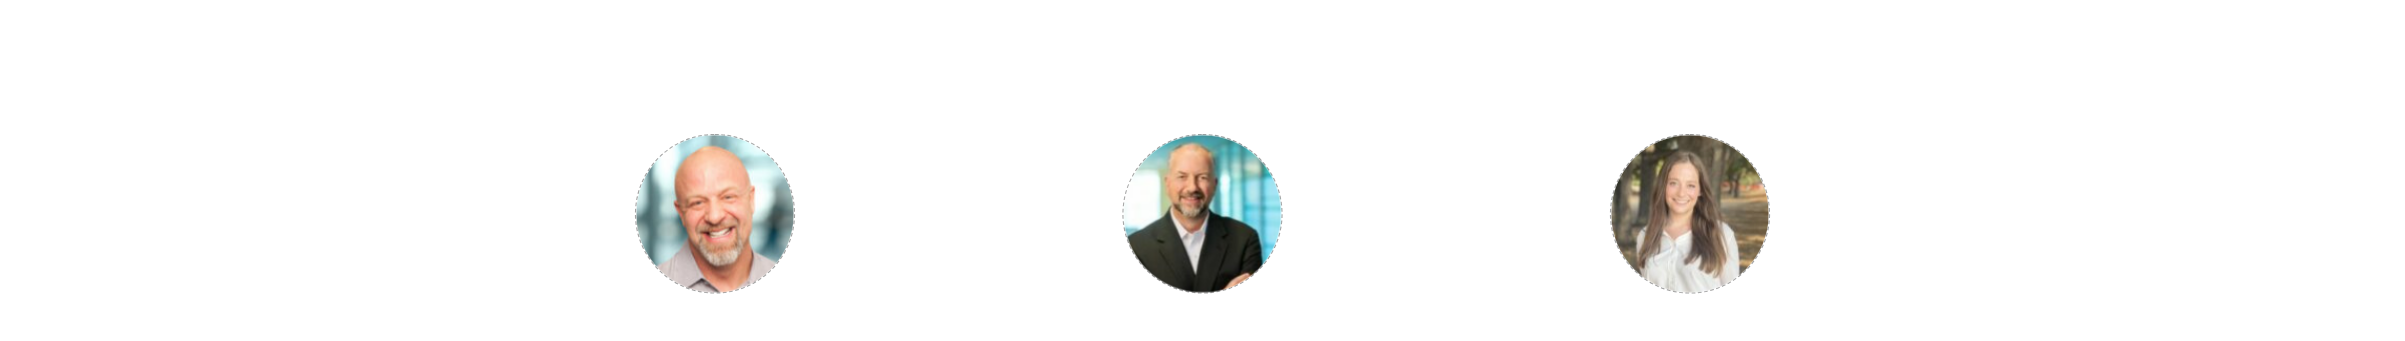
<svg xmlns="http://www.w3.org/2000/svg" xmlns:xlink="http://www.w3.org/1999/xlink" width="2405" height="341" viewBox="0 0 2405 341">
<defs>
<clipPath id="clip1"><rect x="471" y="134" width="1463" height="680"/></clipPath>
</defs>
<rect width="100%" height="100%" fill="#ffffff"/>
<path fill="none" stroke="#a4a4a4" stroke-width="1.2" stroke-dasharray="3.75 2.5" d="M715 134.5C759 134.5 794.5 170 794.5 214C794.5 257.5 759 293 715 293C671 293 635.5 257.5 635.5 214C635.5 170 671 134.5 715 134.5Z"/>
<image xlink:href="image0.png" x="636" y="134" width="158" height="159"/>
<g clip-path="url(#clip1)">
<path fill="none" stroke="#a4a4a4" stroke-width="1.2" stroke-dasharray="3.75 2.5" d="M1202.5 134.5C1246.5 134.5 1282 170 1282 214C1282 257.5 1246.5 293 1202.5 293C1158.5 293 1123 257.5 1123 214C1123 170 1158.5 134.5 1202.5 134.5Z"/>
</g>
<image xlink:href="image1.png" x="1123" y="134" width="159" height="159"/>
<path fill="none" stroke="#a4a4a4" stroke-width="1.2" stroke-dasharray="3.75 2.5" d="M1690 134.5C1734 134.5 1769.5 170 1769.5 214C1769.5 257.5 1734 293 1690 293C1646 293 1610.5 257.5 1610.5 214C1610.5 170 1646 134.5 1690 134.5Z"/>
<image xlink:href="image2.png" x="1611" y="134" width="158" height="159"/>
</svg>
